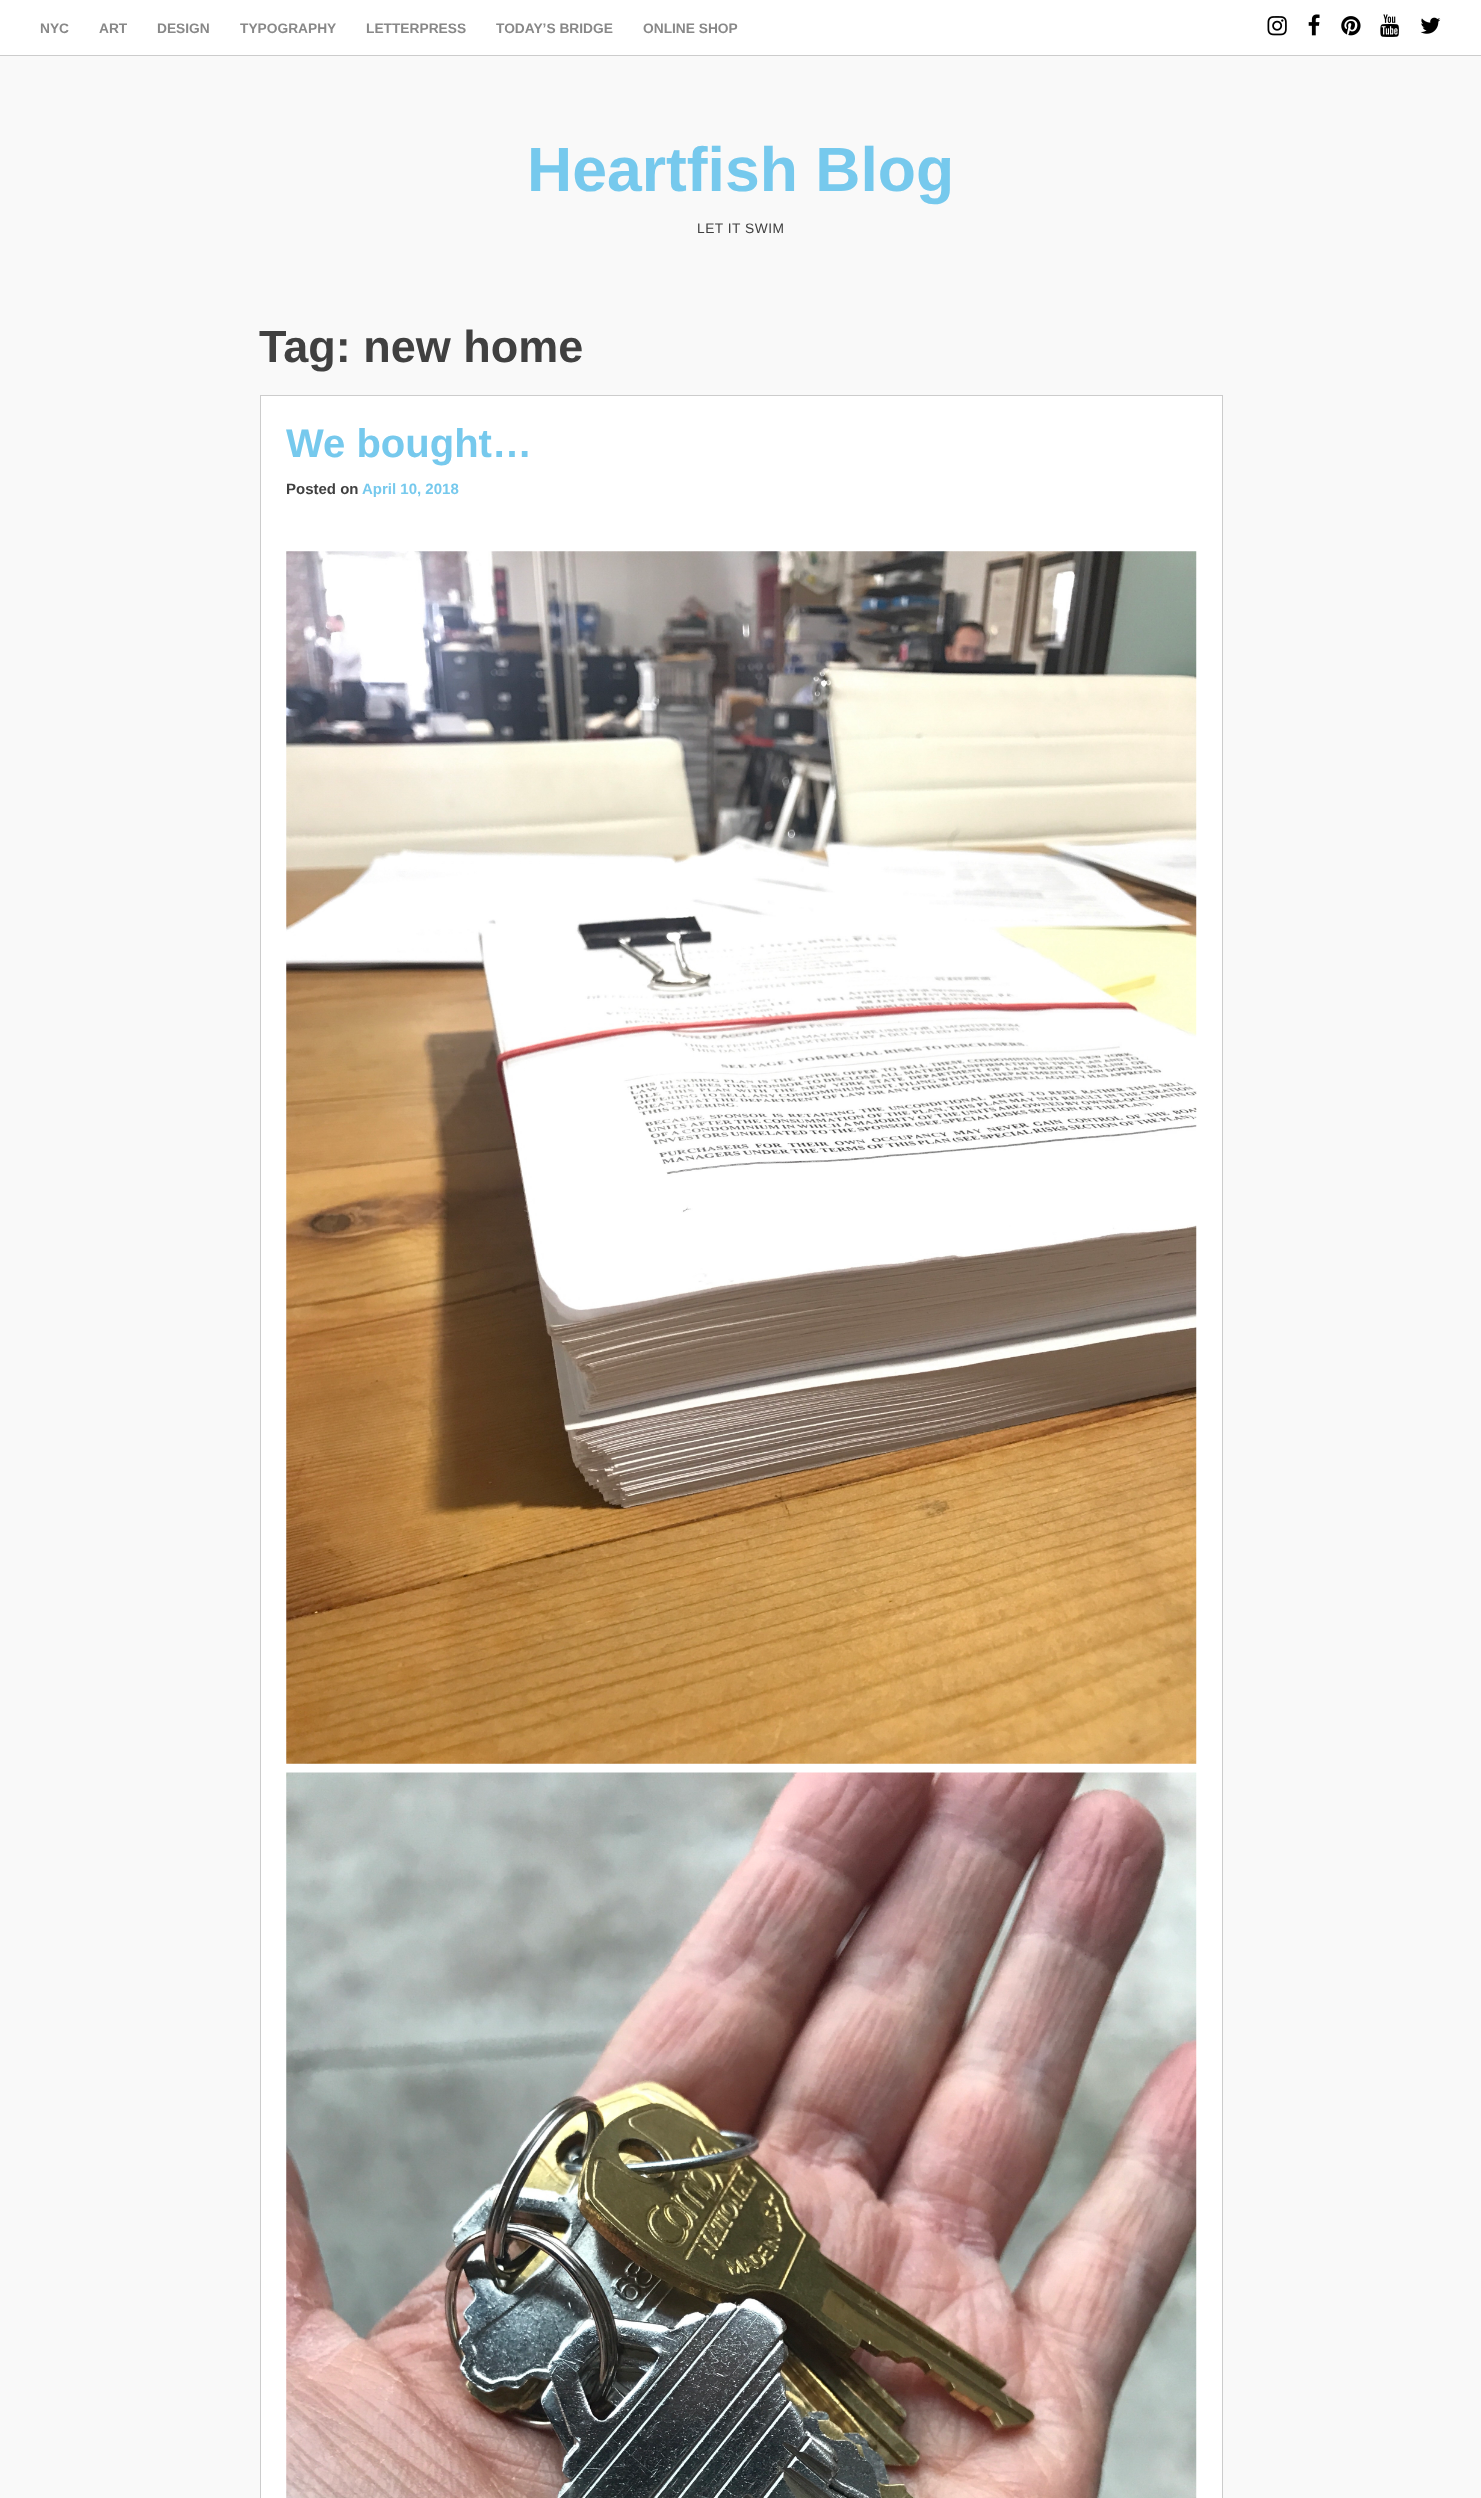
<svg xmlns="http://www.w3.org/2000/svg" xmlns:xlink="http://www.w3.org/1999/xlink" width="1481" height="2498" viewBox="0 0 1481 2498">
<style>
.cls-1{font:bold 13.75px Liberation Sans;fill:#888888}
.cls-2{font:bold 62.5px Liberation Sans;fill:#76c9ed}
.cls-3{font:13.75px Liberation Sans;letter-spacing:0.5px;fill:#404040}
.cls-4{font:bold 45px Liberation Sans;fill:#404040}
.cls-5{font:bold 40px Liberation Sans;fill:#76c9ed}
.cls-6{font:bold 15px Liberation Sans;fill:#404040}
.cls-7{font:bold 15px Liberation Sans;fill:#76c9ed}
</style>
<rect width="100%" height="100%" fill="#f9f9f9"/>
<rect fill="#ffffff" x="0" y="0" width="1481" height="55"/>
<rect fill="#cccccc" x="0" y="55" width="1481" height="1"/>
<image xlink:href="image0.png" x="1267" y="16" width="20" height="20"/>
<image xlink:href="image1.png" x="1308" y="14" width="12" height="22"/>
<image xlink:href="image2.png" x="1341" y="16" width="20" height="20"/>
<image xlink:href="image3.png" x="1380" y="14" width="19" height="23"/>
<image xlink:href="image4.png" x="1420" y="17" width="21" height="17"/>
<rect fill="#ffffff" stroke="#cccccc" x="260.5" y="395.5" width="962" height="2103"/>
<image xlink:href="image5.png" x="286" y="551" width="911" height="1213"/>
<image xlink:href="image6.png" x="286" y="1772" width="911" height="726"/>
<text class="cls-1" x="40" y="33">NYC</text>
<text class="cls-1" x="99" y="33">ART</text>
<text class="cls-1" x="157" y="33">DESIGN</text>
<text class="cls-1" x="240" y="33">TYPOGRAPHY</text>
<text class="cls-1" x="366" y="33">LETTERPRESS</text>
<text class="cls-1" x="496" y="33">TODAY’S BRIDGE</text>
<text class="cls-1" x="643" y="33">ONLINE SHOP</text>
<text class="cls-2" x="527" y="191">Heartfish Blog</text>
<text class="cls-3" x="697" y="233">LET IT SWIM</text>
<text class="cls-4" x="259" y="362">Tag: new home</text>
<text class="cls-5" x="286" y="457">We bought…</text>
<text class="cls-6" x="286" y="494">Posted on</text>
<text class="cls-7" x="362" y="494">April 10, 2018</text>
</svg>
